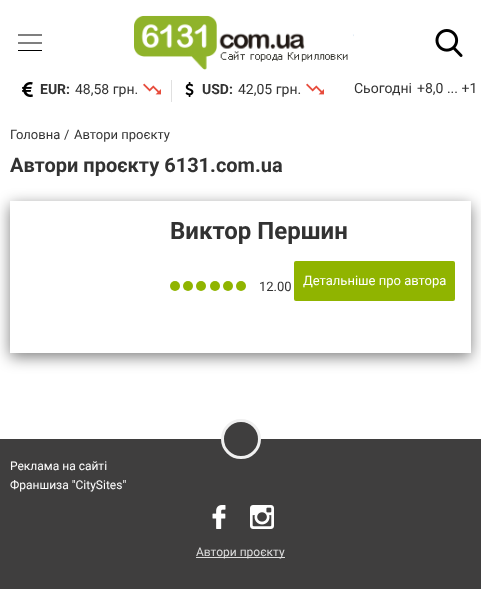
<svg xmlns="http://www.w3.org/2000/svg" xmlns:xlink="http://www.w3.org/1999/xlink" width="481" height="589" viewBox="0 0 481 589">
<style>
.cls-1{font:bold 14px Roboto;fill:#323232}
.cls-2{font:14px Roboto;fill:#323232}
.cls-3{font:13px Roboto;fill:#323232}
.cls-4{font:bold 20px Roboto;fill:#323232}
.cls-5{font:bold 24px Roboto;fill:#323232}
.cls-6{font:13px Roboto;fill:#ffffff}
.cls-7{font:12px Roboto;fill:#ffffff}
.cls-8{font:12px Roboto;fill:#dcdcdc}
</style>
<defs>
<clipPath id="clip1"><path d="M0 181H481V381H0ZM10 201H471V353H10Z" clip-rule="evenodd"/></clipPath>
</defs>
<rect width="100%" height="100%" fill="#ffffff"/>
<path fill="none" stroke="#000000" stroke-width="1.2" d="M18 43H42M18 35H42"/>
<rect fill="#000000" x="18" y="50" width="24" height="1"/>
<image xlink:href="image0.png" x="134" y="15" width="220" height="55"/>
<image xlink:href="image1.png" x="435" y="29" width="28" height="28"/>
<rect fill="#e0e0e0" x="171" y="80" width="1" height="22"/>
<image xlink:href="image2.png" x="22" y="82" width="11" height="15"/>
<image xlink:href="image3.png" x="143" y="83" width="18" height="12"/>
<image xlink:href="image4.png" x="185" y="82" width="9" height="15"/>
<image xlink:href="image3.png" x="306" y="83" width="18" height="12"/>
<g clip-path="url(#clip1)">
<rect fill="#000000" fill-opacity="0.5" filter="blur(7.5px)" x="10" y="205" width="461" height="152"/>
</g>
<circle fill="#90b400" cx="175" cy="286" r="5"/>
<circle fill="#90b400" cx="188" cy="286" r="5"/>
<circle fill="#90b400" cx="201" cy="286" r="5"/>
<circle fill="#90b400" cx="215" cy="286" r="5"/>
<circle fill="#90b400" cx="228" cy="286" r="5"/>
<circle fill="#90b400" cx="241" cy="286" r="5"/>
<rect fill="#90b400" x="294" y="261" width="161" height="40" rx="2"/>
<rect fill="#3f3e3e" x="0" y="439" width="481" height="150"/>
<circle fill="#3f3e3e" stroke="#f0f0f0" stroke-width="3" cx="241" cy="439" r="18.5"/>
<image xlink:href="image5.png" x="212" y="505" width="14" height="24"/>
<image xlink:href="image6.png" x="250" y="505" width="24" height="24"/>
<rect fill="#dcdcdc" x="196" y="557" width="89" height="1"/>
<text class="cls-1" x="40" y="94">EUR:</text>
<text class="cls-2" x="75" y="94">48,58 грн.</text>
<text class="cls-1" x="202" y="94">USD:</text>
<text class="cls-2" x="238" y="94">42,05 грн.</text>
<text class="cls-2" x="354" y="93">Сьогодні</text>
<text class="cls-2" x="417" y="93">+8,0 ... +1</text>
<text class="cls-3" x="10" y="139">Головна</text>
<text class="cls-3" x="64" y="139">/</text>
<text class="cls-3" x="74" y="139">Автори проєкту</text>
<text class="cls-4" x="10" y="172">Автори проєкту 6131.com.ua</text>
<text class="cls-5" x="170" y="239">Виктор Першин</text>
<text class="cls-3" x="259" y="291">12.00</text>
<text class="cls-6" x="303" y="285">Детальніше про автора</text>
<text class="cls-7"><tspan x="10" y="470">Реклама на сайті</tspan><tspan x="10" y="489">Франшиза "CitySites"</tspan></text>
<text class="cls-8" x="196" y="556">Автори проєкту</text>
</svg>
